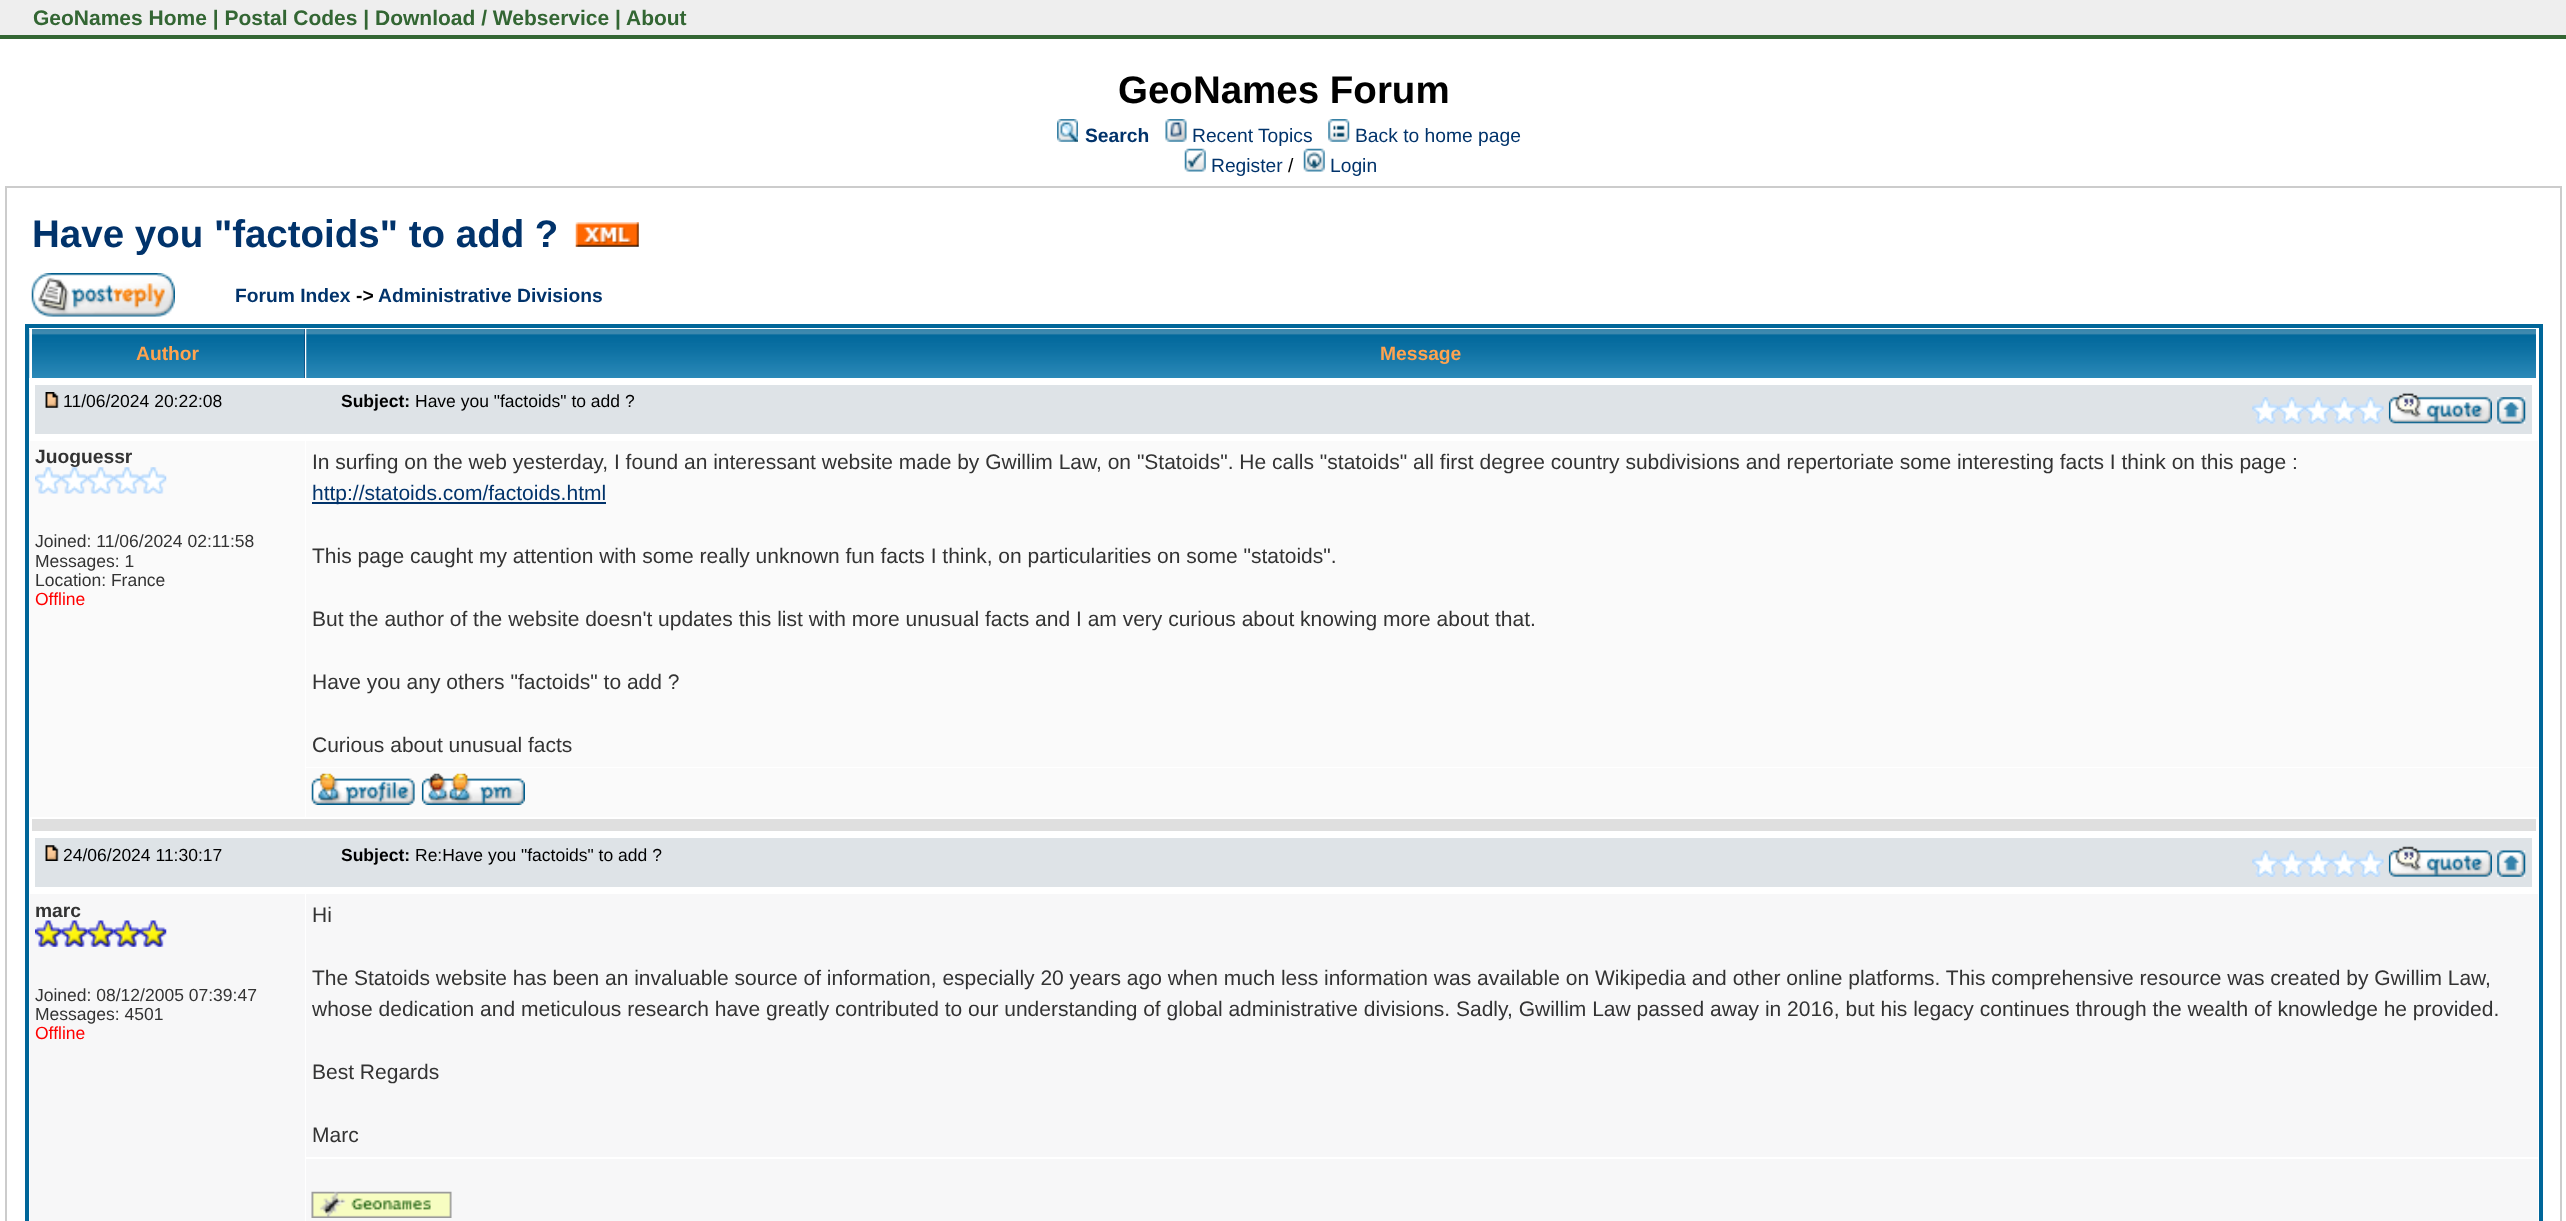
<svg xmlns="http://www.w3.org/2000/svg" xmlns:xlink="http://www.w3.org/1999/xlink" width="2566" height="1221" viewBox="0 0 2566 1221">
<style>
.cls-1{font:bold 21px Liberation Sans;fill:#336633}
.cls-2{font:bold 38.5px Liberation Sans;fill:#000000}
.cls-3{font:bold 19.25px Liberation Sans;fill:#01336b}
.cls-4{font:19.25px Liberation Sans;fill:#01336b}
.cls-5{font:19.25px Liberation Sans;fill:#000000}
.cls-6{font:bold 38.5px Liberation Sans;fill:#01336b}
.cls-7{font:bold 19.25px Liberation Sans;fill:#000000}
.cls-8{font:bold 19.25px Liberation Sans;fill:#ffa34f}
.cls-9{font:17.5px Liberation Sans;fill:#000000}
.cls-10{font:bold 17.5px Liberation Sans;fill:#000000}
.cls-11{font:bold 19.25px Liberation Sans;fill:#333333}
.cls-12{font:17.5px Liberation Sans;fill:#333333}
.cls-13{font:17.5px Liberation Sans;fill:#ff0000}
.cls-14{font:21px Liberation Sans;fill:#333333}
.cls-15{font:21px Liberation Sans;fill:#01336b}
</style>
<rect width="100%" height="100%" fill="#ffffff"/>
<rect fill="#eeeeee" x="0" y="0" width="2566" height="35"/>
<rect fill="#336633" x="0" y="35" width="2566" height="4"/>
<image xlink:href="image0.png" x="1057" y="119" width="21" height="23"/>
<image xlink:href="image1.png" x="1165" y="119" width="22" height="23"/>
<image xlink:href="image2.png" x="1328" y="119" width="22" height="23"/>
<image xlink:href="image3.png" x="1184" y="148" width="22" height="24"/>
<image xlink:href="image4.png" x="1303" y="148" width="22" height="24"/>
<rect fill="none" stroke="#cccccc" stroke-width="2" x="6" y="187" width="2555" height="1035"/>
<image xlink:href="image5.png" x="575" y="222" width="64" height="25"/>
<image xlink:href="image6.png" x="31" y="273" width="144" height="44"/>
<rect fill="none" stroke="#006699" stroke-width="4" x="27" y="326" width="2514" height="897"/>
<rect fill="#01336b" x="304" y="329" width="1" height="49"/>
<image xlink:href="image7.png" x="29" y="329" width="276" height="49"/>
<rect fill="#ffffff" x="30" y="329" width="2" height="49"/>
<image xlink:href="image8.png" x="306" y="329" width="2230" height="49"/>
<rect fill="#dee3e7" x="35" y="385" width="2497" height="49"/>
<image xlink:href="image9.png" x="45" y="392" width="14" height="16"/>
<image xlink:href="image10.png" x="2252" y="397" width="27" height="27"/>
<image xlink:href="image11.png" x="2278" y="397" width="27" height="27"/>
<image xlink:href="image12.png" x="2305" y="397" width="26" height="27"/>
<image xlink:href="image13.png" x="2331" y="397" width="27" height="27"/>
<image xlink:href="image14.png" x="2357" y="397" width="27" height="27"/>
<image xlink:href="image15.png" x="2388" y="393" width="104" height="31"/>
<image xlink:href="image16.png" x="2497" y="397" width="29" height="27"/>
<rect fill="#fafafa" x="30" y="441" width="275" height="376"/>
<image xlink:href="image17.png" x="140" y="467" width="27" height="27"/>
<rect fill="#fafafa" x="306" y="441" width="2232" height="326"/>
<rect fill="#01336b" x="312" y="502" width="294" height="2"/>
<rect fill="#fafafa" x="306" y="768" width="2232" height="49"/>
<image xlink:href="image21.png" x="311" y="773" width="104" height="32"/>
<image xlink:href="image22.png" x="421" y="773" width="104" height="32"/>
<rect fill="#dfdfdf" x="32" y="819" width="2504" height="12"/>
<rect fill="#dee3e7" x="35" y="838" width="2497" height="49"/>
<image xlink:href="image23.png" x="45" y="845" width="14" height="16"/>
<image xlink:href="image24.png" x="2252" y="850" width="27" height="27"/>
<image xlink:href="image25.png" x="2278" y="850" width="27" height="27"/>
<image xlink:href="image26.png" x="2305" y="850" width="26" height="27"/>
<image xlink:href="image27.png" x="2331" y="850" width="27" height="27"/>
<image xlink:href="image28.png" x="2357" y="850" width="27" height="27"/>
<image xlink:href="image29.png" x="2388" y="846" width="104" height="31"/>
<image xlink:href="image30.png" x="2497" y="850" width="29" height="27"/>
<rect fill="#f7f7f8" x="30" y="894" width="275" height="327"/>
<image xlink:href="image31.png" x="35" y="920" width="27" height="27"/>
<image xlink:href="image32.png" x="61" y="920" width="27" height="27"/>
<image xlink:href="image33.png" x="87" y="920" width="27" height="27"/>
<image xlink:href="image34.png" x="113" y="920" width="27" height="27"/>
<image xlink:href="image31.png" x="140" y="920" width="27" height="27"/>
<rect fill="#f7f7f8" x="306" y="894" width="2232" height="263"/>
<rect fill="#f7f7f8" x="306" y="1159" width="2232" height="62"/>
<image xlink:href="image35.png" x="311" y="1191" width="141" height="27"/>
<text class="cls-1" x="33" y="25">GeoNames Home | Postal Codes | Download / Webservice | About</text>
<text class="cls-2" x="1118" y="103">GeoNames Forum</text>
<text class="cls-3" x="1085" y="142">Search</text>
<text class="cls-4" x="1192" y="142">Recent Topics</text>
<text class="cls-4" x="1355" y="142">Back to home page</text>
<text class="cls-4" x="1211" y="172">Register</text>
<text class="cls-5" x="1288" y="172">/</text>
<text class="cls-4" x="1330" y="172">Login</text>
<text class="cls-6" x="32" y="247">Have you "factoids" to add ?</text>
<text class="cls-3" x="235" y="302">Forum Index</text>
<text class="cls-7" x="356" y="302">-&gt;</text>
<text class="cls-3" x="378" y="302">Administrative Divisions</text>
<text class="cls-8" x="136" y="360">Author</text>
<text class="cls-8" x="1380" y="360">Message</text>
<text class="cls-9" x="63" y="407">11/06/2024 20:22:08</text>
<text class="cls-10" x="341" y="407">Subject:</text>
<text class="cls-9" x="415" y="407">Have you "factoids" to add ?</text>
<text class="cls-11" x="35" y="463">Juoguessr</text>
<image xlink:href="image17.png" x="35" y="467" width="27" height="27"/>
<image xlink:href="image18.png" x="61" y="467" width="27" height="27"/>
<image xlink:href="image19.png" x="87" y="467" width="27" height="27"/>
<image xlink:href="image20.png" x="113" y="467" width="27" height="27"/>
<text class="cls-12"><tspan x="35" y="547">Joined: 11/06/2024 02:11:58</tspan><tspan x="35" y="567">Messages: 1</tspan><tspan x="35" y="586">Location: France</tspan></text>
<text class="cls-13" x="35" y="605">Offline</text>
<text class="cls-14" x="312" y="469">In surfing on the web yesterday, I found an interessant website made by Gwillim Law, on "Statoids". He calls "statoids" all first degree country subdivisions and repertoriate some interesting facts I think on this page :</text>
<text class="cls-15" x="312" y="500">http://statoids.com/factoids.html</text>
<text class="cls-14" x="312" y="563">This page caught my attention with some really unknown fun facts I think, on particularities on some "statoids".</text>
<text class="cls-14" x="312" y="626">But the author of the website doesn't updates this list with more unusual facts and I am very curious about knowing more about that.</text>
<text class="cls-14" x="312" y="689">Have you any others "factoids" to add ?</text>
<text class="cls-14" x="312" y="752">Curious about unusual facts</text>
<text class="cls-9" x="63" y="861">24/06/2024 11:30:17</text>
<text class="cls-10" x="341" y="861">Subject:</text>
<text class="cls-9" x="415" y="861">Re:Have you "factoids" to add ?</text>
<text class="cls-11" x="35" y="917">marc</text>
<text class="cls-12"><tspan x="35" y="1001">Joined: 08/12/2005 07:39:47</tspan><tspan x="35" y="1020">Messages: 4501</tspan></text>
<text class="cls-13" x="35" y="1039">Offline</text>
<text class="cls-14" x="312" y="922">Hi</text>
<text class="cls-14"><tspan x="312" y="985">The Statoids website has been an invaluable source of information, especially 20 years ago when much less information was available on Wikipedia and other online platforms. This comprehensive resource was created by Gwillim Law,</tspan><tspan x="312" y="1016">whose dedication and meticulous research have greatly contributed to our understanding of global administrative divisions. Sadly, Gwillim Law passed away in 2016, but his legacy continues through the wealth of knowledge he provided.</tspan></text>
<text class="cls-14" x="312" y="1079">Best Regards</text>
<text class="cls-14" x="312" y="1142">Marc</text>
</svg>
